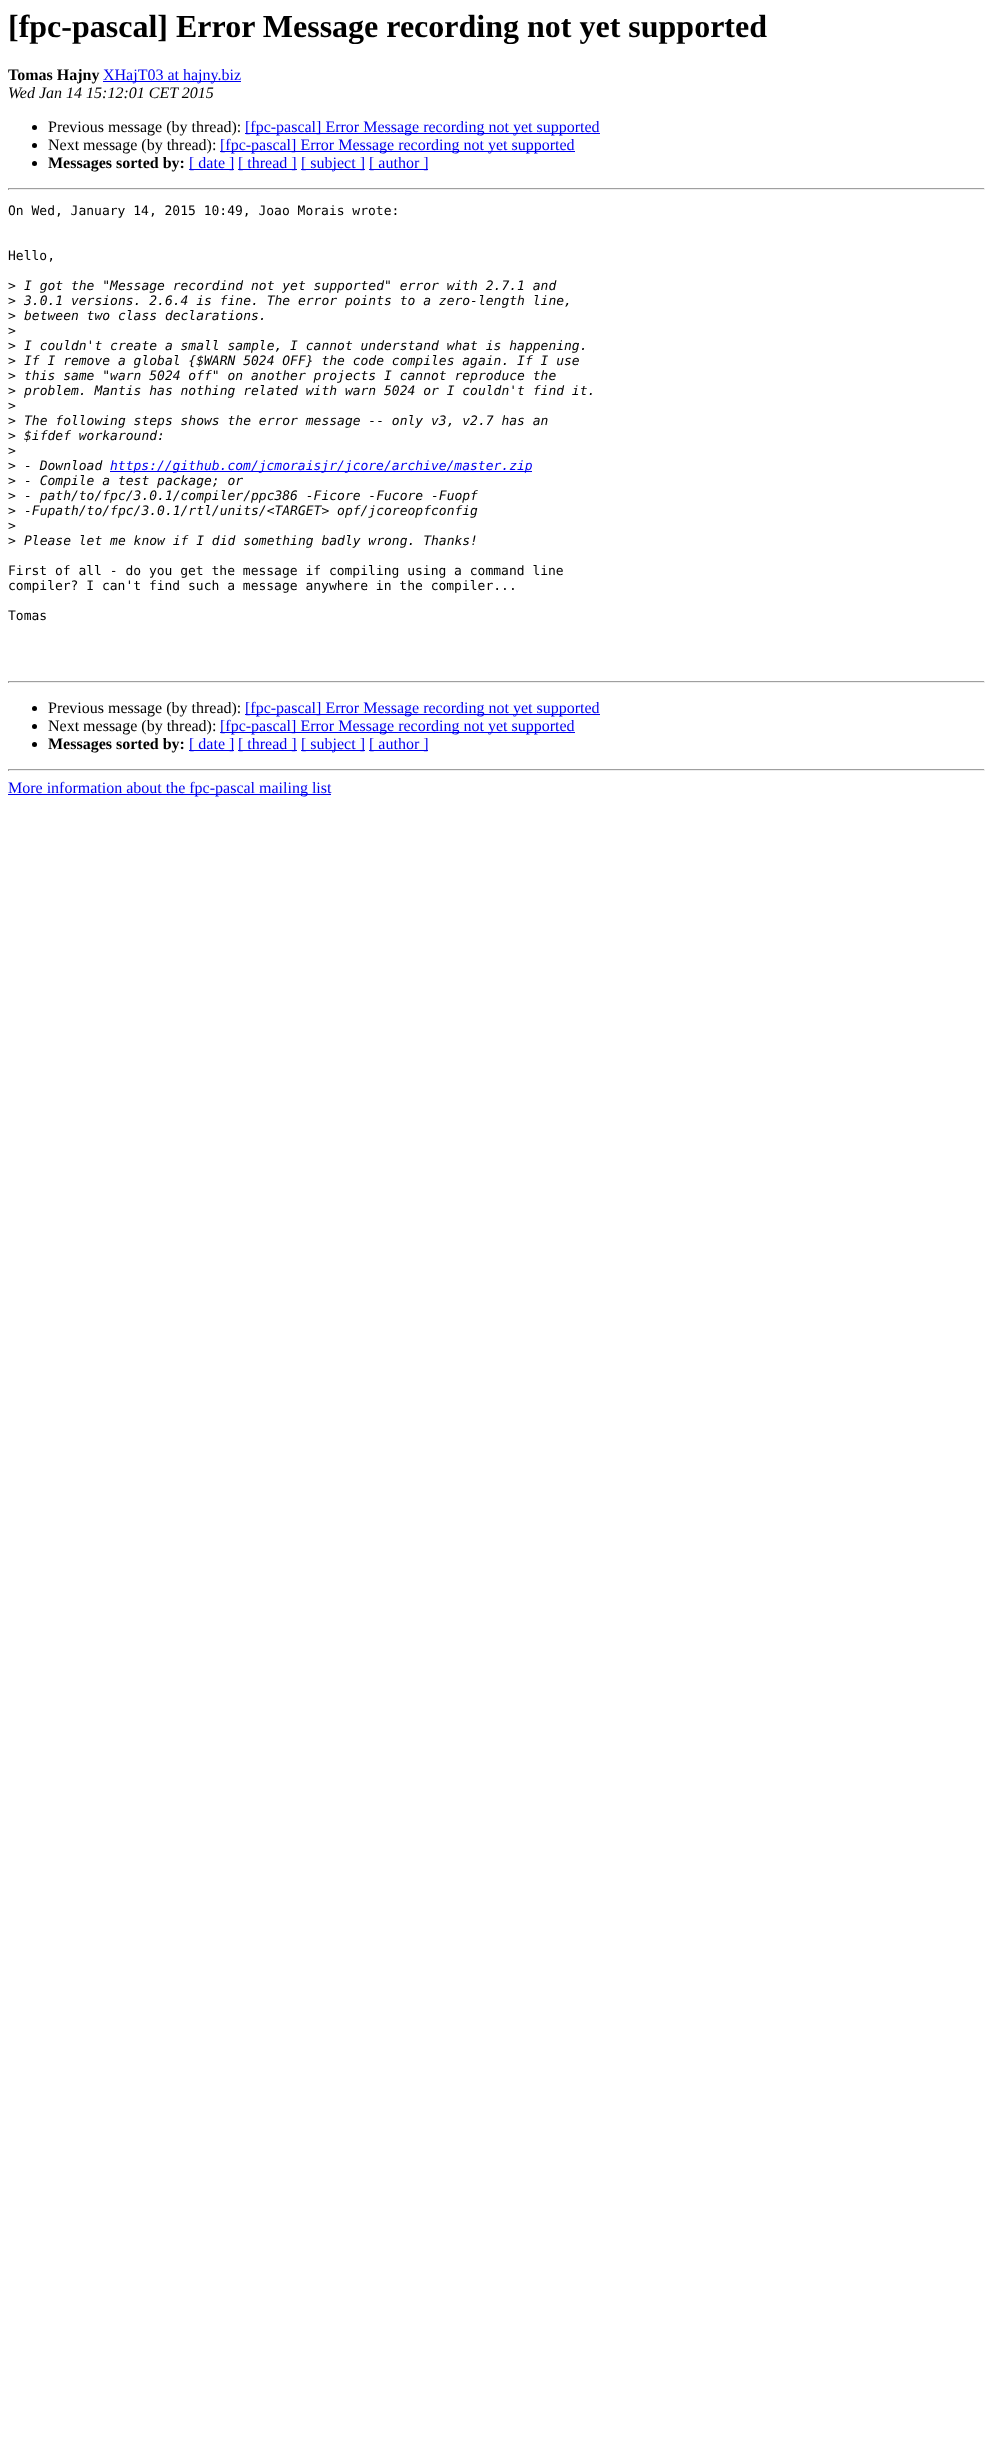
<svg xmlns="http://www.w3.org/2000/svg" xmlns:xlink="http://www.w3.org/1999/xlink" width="993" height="2460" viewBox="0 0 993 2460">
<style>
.cls-1{font:bold 32px Liberation Serif;fill:#000000}
.cls-2{font:bold 16px Liberation Serif;fill:#000000}
.cls-3{font:16px Liberation Serif;fill:#0000ee}
.cls-4{font:italic 16px Liberation Serif;fill:#000000}
.cls-5{font:16px Liberation Serif;fill:#000000}
.cls-6{font:13px DejaVu Sans Mono;fill:#000000}
.cls-7{font:italic 13px DejaVu Sans Mono;fill:#000000}
.cls-8{font:italic 13px DejaVu Sans Mono;fill:#0000ee}
</style>
<rect width="100%" height="100%" fill="#ffffff"/>
<rect fill="#0000ee" x="103" y="81" width="138" height="1"/>
<circle fill="#000000" cx="34.5" cy="127.5" r="2.5"/>
<rect fill="#0000ee" x="245" y="133" width="355" height="1"/>
<circle fill="#000000" cx="34.5" cy="145.5" r="2.5"/>
<rect fill="#0000ee" x="220" y="151" width="355" height="1"/>
<circle fill="#000000" cx="34.5" cy="163.5" r="2.5"/>
<rect fill="#0000ee" x="189" y="169" width="45" height="1"/>
<rect fill="#0000ee" x="238" y="169" width="59" height="1"/>
<rect fill="#0000ee" x="301" y="169" width="64" height="1"/>
<rect fill="#0000ee" x="369" y="169" width="59" height="1"/>
<rect fill="#9f9f9f" x="8" y="188" width="977" height="1"/>
<rect fill="#eeeeee" x="984" y="188" width="1" height="2"/>
<rect fill="#eeeeee" x="8" y="189" width="977" height="1"/>
<rect fill="#9f9f9f" x="8" y="188" width="1" height="2"/>
<rect fill="#0000ee" x="110" y="471" width="422" height="1"/>
<rect fill="#9f9f9f" x="8" y="681" width="977" height="1"/>
<rect fill="#eeeeee" x="984" y="681" width="1" height="2"/>
<rect fill="#eeeeee" x="8" y="682" width="977" height="1"/>
<rect fill="#9f9f9f" x="8" y="681" width="1" height="2"/>
<circle fill="#000000" cx="34.5" cy="708.5" r="2.5"/>
<rect fill="#0000ee" x="245" y="714" width="355" height="1"/>
<circle fill="#000000" cx="34.5" cy="726.5" r="2.5"/>
<rect fill="#0000ee" x="220" y="732" width="355" height="1"/>
<circle fill="#000000" cx="34.5" cy="744.5" r="2.5"/>
<rect fill="#0000ee" x="189" y="750" width="45" height="1"/>
<rect fill="#0000ee" x="238" y="750" width="59" height="1"/>
<rect fill="#0000ee" x="301" y="750" width="64" height="1"/>
<rect fill="#0000ee" x="369" y="750" width="59" height="1"/>
<rect fill="#9f9f9f" x="8" y="769" width="977" height="1"/>
<rect fill="#eeeeee" x="984" y="769" width="1" height="2"/>
<rect fill="#eeeeee" x="8" y="770" width="977" height="1"/>
<rect fill="#9f9f9f" x="8" y="769" width="1" height="2"/>
<rect fill="#0000ee" x="8" y="794" width="323" height="1"/>
<text class="cls-1" x="8" y="37">[fpc-pascal] Error Message recording not yet supported</text>
<text class="cls-2" x="8" y="80">Tomas Hajny</text>
<text class="cls-3" x="103" y="80">XHajT03 at hajny.biz</text>
<text class="cls-4" x="8" y="98">Wed Jan 14 15:12:01 CET 2015</text>
<text class="cls-5" x="48" y="132">Previous message (by thread):</text>
<text class="cls-3" x="245" y="132">[fpc-pascal] Error Message recording not yet supported</text>
<text class="cls-5" x="48" y="150">Next message (by thread):</text>
<text class="cls-3" x="220" y="150">[fpc-pascal] Error Message recording not yet supported</text>
<text class="cls-2" x="48" y="168">Messages sorted by:</text>
<text class="cls-3" x="189" y="168">[ date ]</text>
<text class="cls-3" x="238" y="168">[ thread ]</text>
<text class="cls-3" x="301" y="168">[ subject ]</text>
<text class="cls-3" x="369" y="168">[ author ]</text>
<text class="cls-6" x="8" y="215">On Wed, January 14, 2015 10:49, Joao Morais wrote:</text>
<text class="cls-6" x="8" y="260">Hello,</text>
<text class="cls-6" x="8" y="290">&gt;</text>
<text class="cls-7" x="24" y="290">I got the "Message recordind not yet supported" error with 2.7.1 and</text>
<text class="cls-6" x="8" y="305">&gt;</text>
<text class="cls-7" x="24" y="305">3.0.1 versions. 2.6.4 is fine. The error points to a zero-length line,</text>
<text class="cls-6" x="8" y="320">&gt;</text>
<text class="cls-7" x="24" y="320">between two class declarations.</text>
<text class="cls-6"><tspan x="8" y="335">&gt;</tspan><tspan x="8" y="350">&gt;</tspan></text>
<text class="cls-7" x="24" y="350">I couldn't create a small sample, I cannot understand what is happening.</text>
<text class="cls-6" x="8" y="365">&gt;</text>
<text class="cls-7" x="24" y="365">If I remove a global {$WARN 5024 OFF} the code compiles again. If I use</text>
<text class="cls-6" x="8" y="380">&gt;</text>
<text class="cls-7" x="24" y="380">this same "warn 5024 off" on another projects I cannot reproduce the</text>
<text class="cls-6" x="8" y="395">&gt;</text>
<text class="cls-7" x="24" y="395">problem. Mantis has nothing related with warn 5024 or I couldn't find it.</text>
<text class="cls-6"><tspan x="8" y="410">&gt;</tspan><tspan x="8" y="425">&gt;</tspan></text>
<text class="cls-7" x="24" y="425">The following steps shows the error message -- only v3, v2.7 has an</text>
<text class="cls-6" x="8" y="440">&gt;</text>
<text class="cls-7" x="24" y="440">$ifdef workaround:</text>
<text class="cls-6"><tspan x="8" y="455">&gt;</tspan><tspan x="8" y="470">&gt;</tspan></text>
<text class="cls-7" x="24" y="470">- Download</text>
<text class="cls-8" x="110" y="470">https://github.com/jcmoraisjr/jcore/archive/master.zip</text>
<text class="cls-6" x="8" y="485">&gt;</text>
<text class="cls-7" x="24" y="485">- Compile a test package; or</text>
<text class="cls-6" x="8" y="500">&gt;</text>
<text class="cls-7" x="24" y="500">- path/to/fpc/3.0.1/compiler/ppc386 -Ficore -Fucore -Fuopf</text>
<text class="cls-6" x="8" y="515">&gt;</text>
<text class="cls-7" x="24" y="515">-Fupath/to/fpc/3.0.1/rtl/units/&lt;TARGET&gt; opf/jcoreopfconfig</text>
<text class="cls-6"><tspan x="8" y="530">&gt;</tspan><tspan x="8" y="545">&gt;</tspan></text>
<text class="cls-7" x="24" y="545">Please let me know if I did something badly wrong. Thanks!</text>
<text class="cls-6"><tspan x="8" y="575">First of all - do you get the message if compiling using a command line</tspan><tspan x="8" y="590">compiler? I can't find such a message anywhere in the compiler...</tspan></text>
<text class="cls-6" x="8" y="620">Tomas</text>
<text class="cls-5" x="48" y="713">Previous message (by thread):</text>
<text class="cls-3" x="245" y="713">[fpc-pascal] Error Message recording not yet supported</text>
<text class="cls-5" x="48" y="731">Next message (by thread):</text>
<text class="cls-3" x="220" y="731">[fpc-pascal] Error Message recording not yet supported</text>
<text class="cls-2" x="48" y="749">Messages sorted by:</text>
<text class="cls-3" x="189" y="749">[ date ]</text>
<text class="cls-3" x="238" y="749">[ thread ]</text>
<text class="cls-3" x="301" y="749">[ subject ]</text>
<text class="cls-3" x="369" y="749">[ author ]</text>
<text class="cls-3" x="8" y="793">More information about the fpc-pascal mailing list</text>
</svg>
